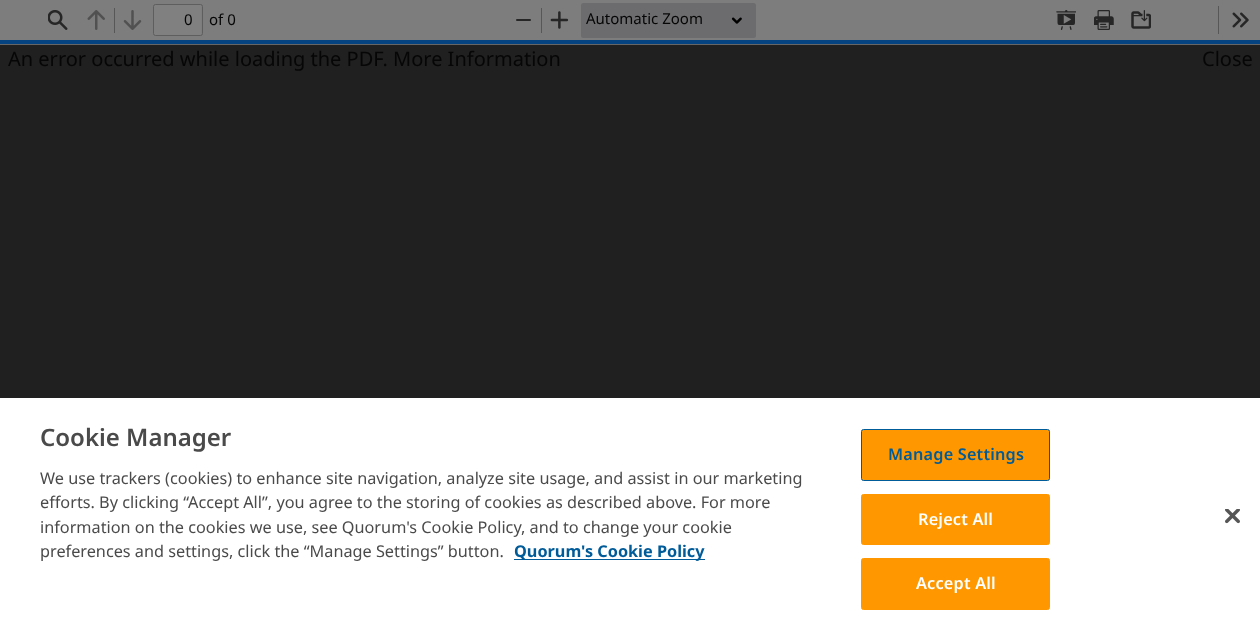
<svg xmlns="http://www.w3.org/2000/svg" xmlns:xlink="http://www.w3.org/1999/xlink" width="1260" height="635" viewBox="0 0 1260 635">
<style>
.cls-1{font:15px Noto Sans;fill:#060607}
.cls-2{font:20px Noto Sans;fill:#060607}
.cls-3{font:600 24px Noto Sans;fill:#4a4a4a}
.cls-4{font:16.25px Noto Sans;fill:#4a4a4a}
.cls-5{font:bold 16.25px Noto Sans;fill:#005b99}
.cls-6{font:600 16.25px Noto Sans;letter-spacing:0.2px;fill:#005b99}
.cls-7{font:600 16.25px Noto Sans;letter-spacing:0.2px;fill:#ffffff}
</style>
<rect width="100%" height="100%" fill="#202020"/>
<rect fill="#7d7d7d" x="0" y="0" width="1260" height="40"/>
<image xlink:href="image0.png" x="48" y="10" width="20" height="20"/>
<image xlink:href="image1.png" x="87" y="10" width="18" height="20"/>
<rect fill="#575758" x="114" y="8" width="1" height="25"/>
<image xlink:href="image2.png" x="123" y="10" width="19" height="20"/>
<rect fill="#808080" x="154" y="5" width="47" height="30" rx="1"/>
<rect fill="none" stroke="#5e5e5e" x="153.5" y="4.5" width="49" height="31" rx="2"/>
<rect fill="#262626" x="516" y="19" width="15" height="2" rx="1"/>
<rect fill="#575758" x="541" y="8" width="1" height="25"/>
<image xlink:href="image3.png" x="550" y="11" width="19" height="18"/>
<rect fill="#6c6c6e" x="581" y="3" width="175" height="35" rx="2.5"/>
<image xlink:href="image4.png" x="731" y="17" width="11" height="7"/>
<image xlink:href="image5.png" x="1056" y="10" width="20" height="20"/>
<image xlink:href="image6.png" x="1094" y="10" width="20" height="20"/>
<image xlink:href="image7.png" x="1131" y="10" width="20" height="19"/>
<rect fill="#575758" x="1218" y="6" width="1" height="28"/>
<image xlink:href="image8.png" x="1232" y="12" width="17" height="16"/>
<rect fill="#666666" x="0" y="44" width="1260" height="1"/>
<rect fill="#054280" x="0" y="40" width="1260" height="4"/>
<rect fill="#ffffff" x="0" y="398" width="1260" height="237"/>
<rect fill="#005b99" x="514" y="559" width="191" height="1"/>
<rect fill="#ff9800" stroke="#005b99" x="861.5" y="429.5" width="188" height="51" rx="2"/>
<rect fill="#ff9800" stroke="#ff9800" x="861.5" y="494.5" width="188" height="50" rx="2"/>
<rect fill="#ff9800" stroke="#ff9800" x="861.5" y="558.5" width="188" height="51" rx="2"/>
<image xlink:href="image9.png" x="1225" y="509" width="15" height="15"/>
<text class="cls-1" x="184" y="25">0</text>
<text class="cls-1" x="209" y="25">of 0</text>
<text class="cls-1" x="586" y="24">Automatic Zoom</text>
<text class="cls-2" x="8" y="66">An error occurred while loading the PDF. More Information</text>
<text class="cls-2" x="1202" y="66">Close</text>
<text class="cls-3" x="40" y="446">Cookie Manager</text>
<text class="cls-4"><tspan x="40" y="484">We use trackers (cookies) to enhance site navigation, analyze site usage, and assist in our marketing</tspan><tspan x="40" y="508">efforts. By clicking “Accept All”, you agree to the storing of cookies as described above. For more</tspan><tspan x="40" y="533">information on the cookies we use, see Quorum's Cookie Policy, and to change your cookie</tspan><tspan x="40" y="557">preferences and settings, click the “Manage Settings” button.</tspan></text>
<text class="cls-5" x="514" y="557">Quorum's Cookie Policy</text>
<text class="cls-6" x="888" y="460">Manage Settings</text>
<text class="cls-7" x="918" y="525">Reject All</text>
<text class="cls-7" x="916" y="589">Accept All</text>
</svg>
